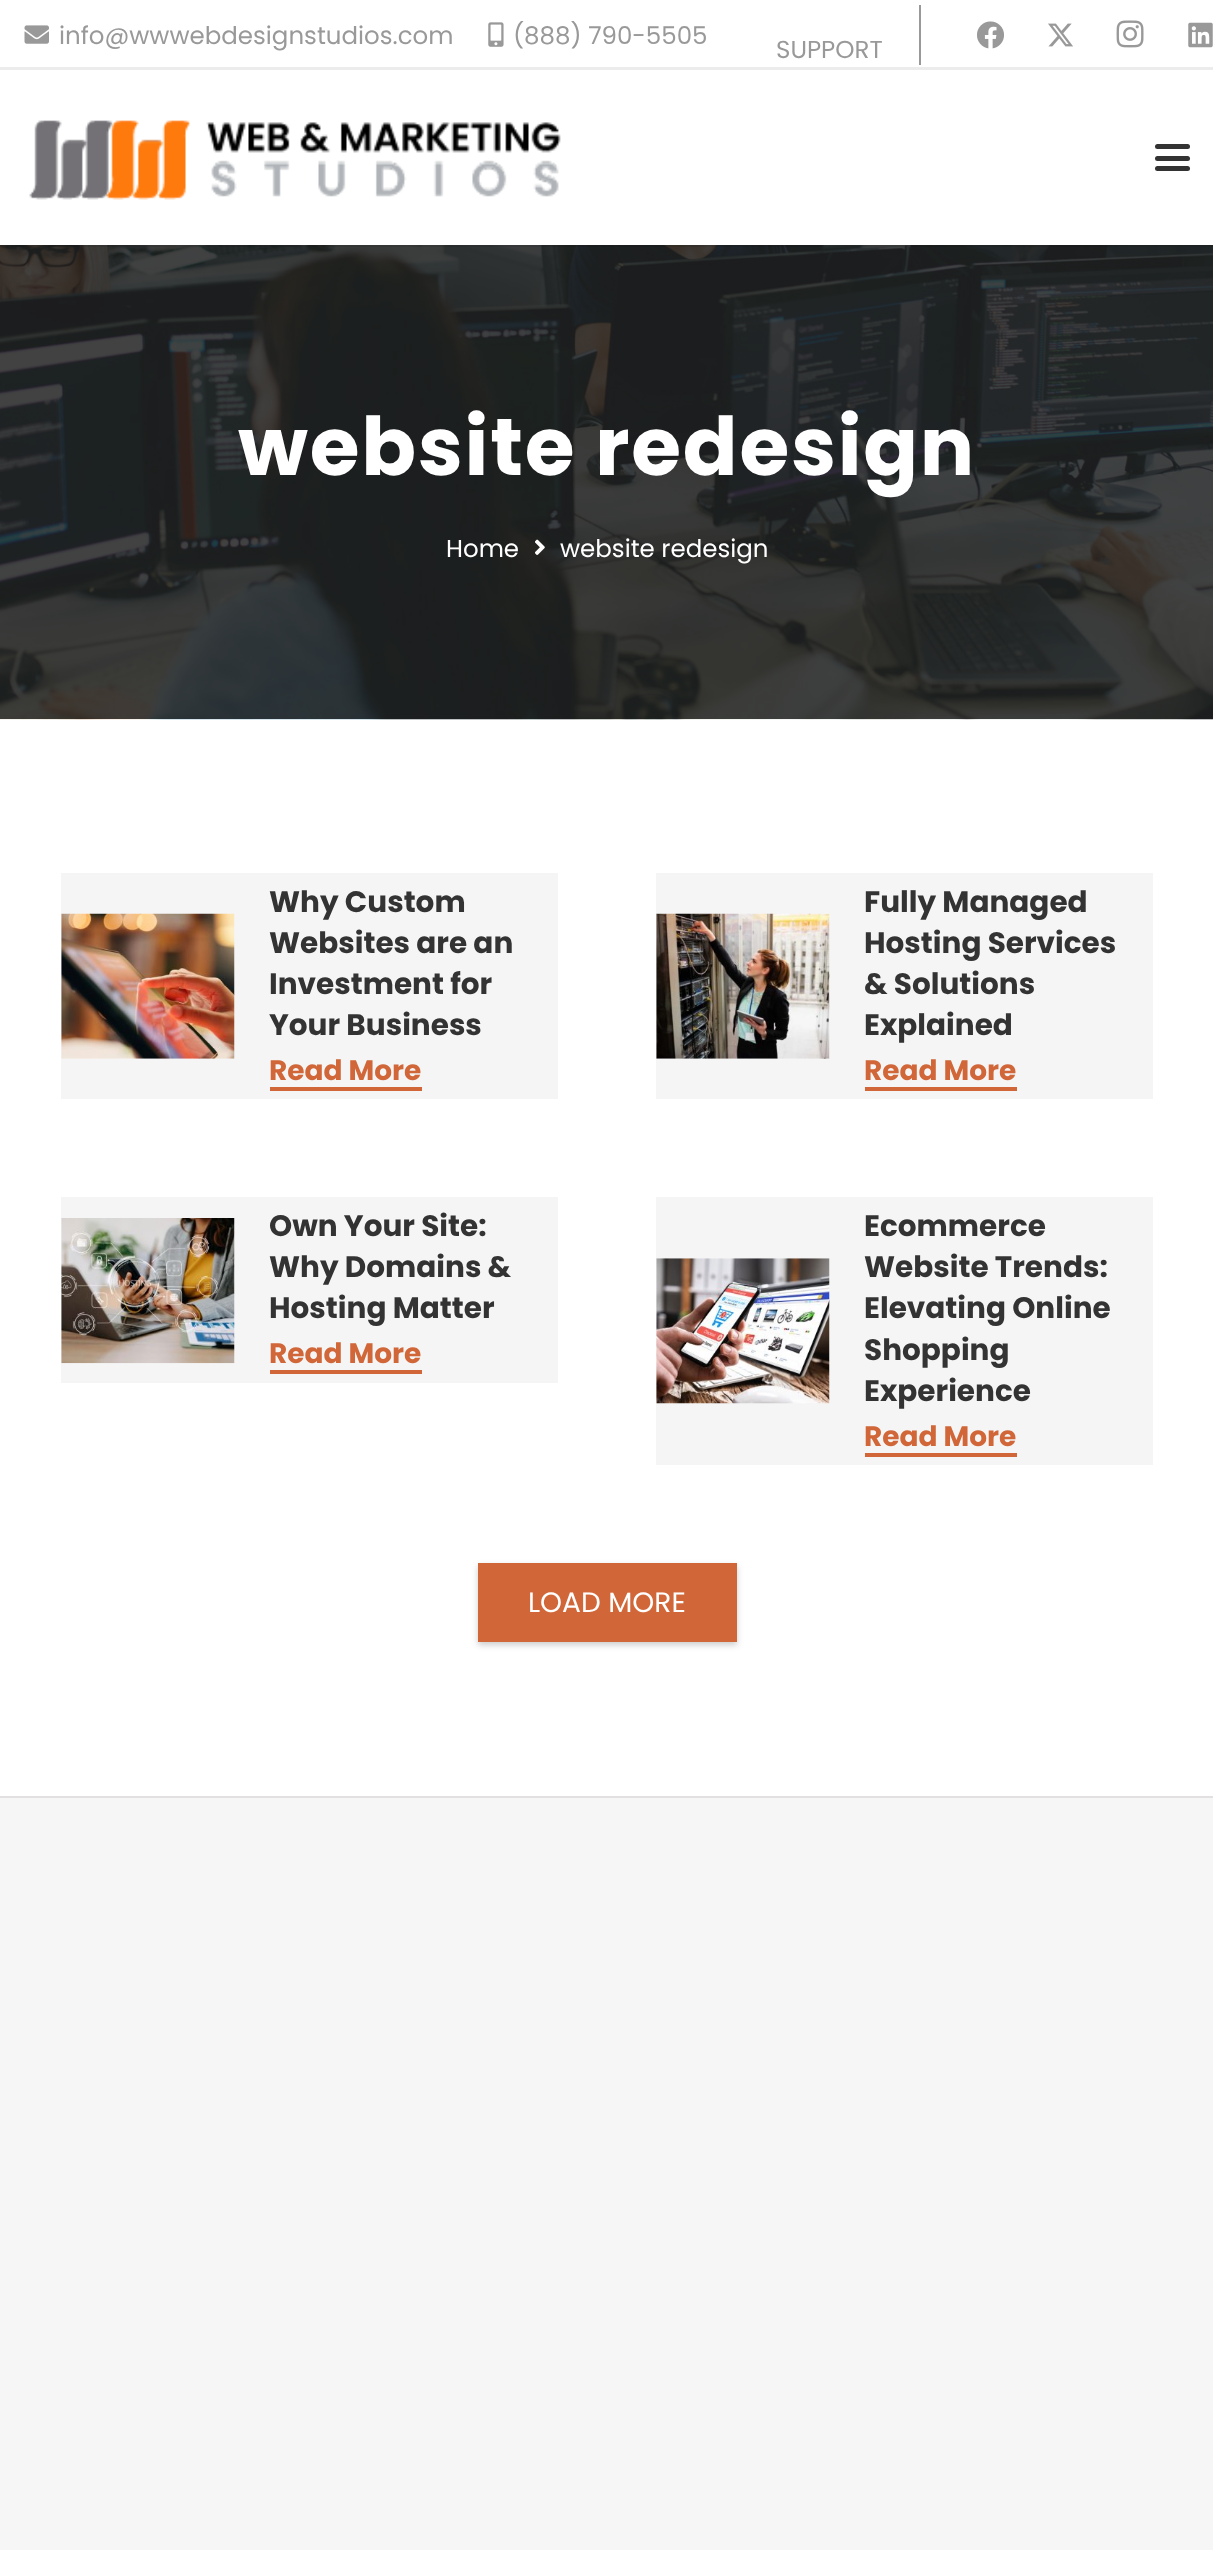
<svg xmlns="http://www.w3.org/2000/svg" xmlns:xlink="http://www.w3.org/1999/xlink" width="1213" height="2550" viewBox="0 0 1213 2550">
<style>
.cls-1{font:24.5px Poppins;fill:#999999}
.cls-2{font:bold 80.75px Poppins;letter-spacing:1.75px;fill:#ffffff}
.cls-3{font:24.5px Poppins;fill:#ffffff}
.cls-4{font:bold 29.5px Poppins;fill:#333333}
.cls-5{font:bold 28px Poppins;fill:#d16739}
.cls-6{font:28px Poppins;fill:#ffffff}
</style>
<rect width="100%" height="100%" fill="#ffffff"/>
<rect fill="#ececec" x="0" y="67" width="1213" height="3"/>
<image xlink:href="image0.png" x="24" y="25" width="25" height="19"/>
<image xlink:href="image1.png" x="488" y="22" width="16" height="25"/>
<rect fill="#999999" x="919" y="5" width="2" height="60"/>
<image xlink:href="image2.png" x="977" y="21" width="27" height="28"/>
<image xlink:href="image3.png" x="1048" y="23" width="25" height="24"/>
<image xlink:href="image4.png" x="1116" y="20" width="28" height="28"/>
<image xlink:href="image5.png" x="1188" y="22" width="25" height="26"/>
<image xlink:href="image7.png" x="0" y="245" width="1213" height="475"/>
<path fill="#000000" fill-opacity="0.08" d="M0 245V247H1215V72H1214V245Z"/>
<image xlink:href="image6.png" x="29" y="120" width="532" height="80"/>
<rect fill="#333333" x="1155" y="156" width="35" height="5" rx="2.5"/>
<rect fill="#333333" x="1155" y="144" width="35" height="5" rx="2.5"/>
<rect fill="#333333" x="1155" y="166" width="35" height="5" rx="2.5"/>
<image xlink:href="image8.png" x="535" y="539" width="10" height="16"/>
<rect fill="#f5f5f5" x="61" y="873" width="497" height="226"/>
<image xlink:href="image9.png" x="61" y="913" width="174" height="146"/>
<rect fill="#d16739" x="270" y="1087" width="152" height="4"/>
<rect fill="#f5f5f5" x="656" y="873" width="497" height="226"/>
<image xlink:href="image10.png" x="656" y="913" width="174" height="146"/>
<rect fill="#d16739" x="865" y="1087" width="152" height="4"/>
<rect fill="#f5f5f5" x="61" y="1197" width="497" height="186"/>
<image xlink:href="image11.png" x="61" y="1218" width="174" height="146"/>
<rect fill="#d16739" x="270" y="1370" width="152" height="4"/>
<rect fill="#f5f5f5" x="656" y="1197" width="497" height="268"/>
<image xlink:href="image12.png" x="656" y="1258" width="174" height="146"/>
<rect fill="#d16739" x="865" y="1453" width="152" height="4"/>
<rect fill="#000000" fill-opacity="0.2" filter="blur(3px)" x="478" y="1566" width="259" height="79"/>
<rect fill="#d16739" x="478" y="1563" width="259" height="79"/>
<rect fill="#f7f6f6" x="0" y="1798" width="1213" height="752"/>
<rect fill="#e2e0e0" x="0" y="1796" width="1213" height="2"/>
<text class="cls-1" x="59" y="44">info@wwwebdesignstudios.com</text>
<text class="cls-1" x="513" y="44">(888) 790-5505</text>
<text class="cls-1" x="776" y="58">SUPPORT</text>
<text class="cls-2" x="238" y="475">website redesign</text>
<text class="cls-3" x="446" y="557">Home</text>
<text class="cls-3" x="560" y="557">website redesign</text>
<text class="cls-4"><tspan x="269" y="912">Why Custom</tspan><tspan x="269" y="953">Websites are an</tspan><tspan x="269" y="994">Investment for</tspan><tspan x="269" y="1035">Your Business</tspan></text>
<text class="cls-5" x="269" y="1080">Read More</text>
<text class="cls-4"><tspan x="864" y="912">Fully Managed</tspan><tspan x="864" y="953">Hosting Services</tspan><tspan x="864" y="994">&amp; Solutions</tspan><tspan x="864" y="1035">Explained</tspan></text>
<text class="cls-5" x="864" y="1080">Read More</text>
<text class="cls-4"><tspan x="269" y="1236">Own Your Site:</tspan><tspan x="269" y="1277">Why Domains &amp;</tspan><tspan x="269" y="1318">Hosting Matter</tspan></text>
<text class="cls-5" x="269" y="1363">Read More</text>
<text class="cls-4"><tspan x="864" y="1236">Ecommerce</tspan><tspan x="864" y="1277">Website Trends:</tspan><tspan x="864" y="1318">Elevating Online</tspan><tspan x="864" y="1360">Shopping</tspan><tspan x="864" y="1401">Experience</tspan></text>
<text class="cls-5" x="864" y="1446">Read More</text>
<text class="cls-6" x="528" y="1612">LOAD MORE</text>
</svg>
